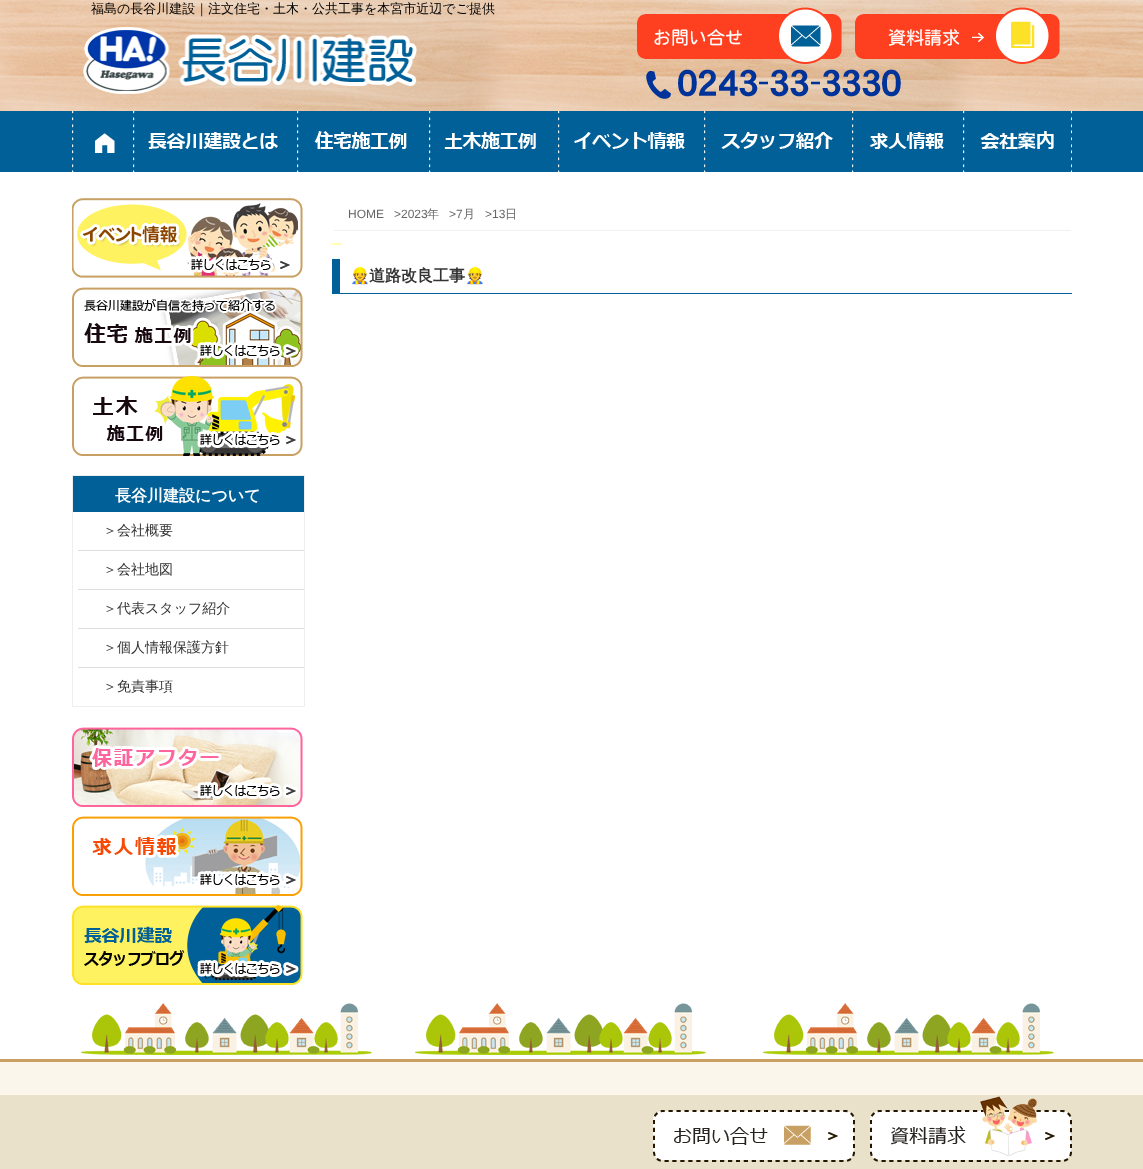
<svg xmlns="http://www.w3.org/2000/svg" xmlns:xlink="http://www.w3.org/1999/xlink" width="1143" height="1169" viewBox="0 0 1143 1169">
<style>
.cls-1{font:500 13px WenQuanYi Zen Hei;fill:#000000}
.cls-2{font:12px Liberation Sans;fill:#666666}
.cls-3{font:500 12px WenQuanYi Zen Hei;fill:#666666}
.cls-4{font:bold 16px Noto Color Emoji;fill:#333333}
.cls-5{font:bold 16px WenQuanYi Zen Hei;fill:#333333}
.cls-6{font:bold 16px WenQuanYi Zen Hei;fill:#ffffff}
.cls-7{font:500 14px WenQuanYi Zen Hei;fill:#333333}
</style>
<rect width="100%" height="100%" fill="#ffffff"/>
<image xlink:href="image0.png" x="0" y="0" width="1143" height="111"/>
<image xlink:href="image1.png" x="637" y="7" width="205" height="57"/>
<image xlink:href="image2.png" x="855" y="7" width="205" height="57"/>
<image xlink:href="image3.png" x="646" y="69" width="255" height="30"/>
<image xlink:href="image4.png" x="83" y="27" width="334" height="67"/>
<rect fill="#006097" x="0" y="111" width="1143" height="61"/>
<image xlink:href="image5.png" x="72" y="111" width="1000" height="61"/>
<rect fill="#f0f0f0" x="334" y="230" width="737" height="1"/>
<rect fill="#fffeb2" x="332" y="243" width="10" height="2"/>
<rect fill="#006097" x="332" y="293" width="740" height="1"/>
<rect fill="#006097" x="332" y="259" width="8" height="35"/>
<image xlink:href="image6.png" x="72" y="198" width="231" height="80"/>
<image xlink:href="image7.png" x="72" y="287" width="231" height="80"/>
<image xlink:href="image8.png" x="72" y="376" width="231" height="80"/>
<rect fill="none" stroke="#eeeeee" x="72.5" y="475.5" width="232" height="231"/>
<rect fill="#006097" x="73" y="476" width="231" height="36"/>
<rect fill="#dddddd" x="78" y="550" width="226" height="1"/>
<rect fill="#dddddd" x="78" y="589" width="226" height="1"/>
<rect fill="#dddddd" x="78" y="628" width="226" height="1"/>
<rect fill="#dddddd" x="78" y="667" width="226" height="1"/>
<image xlink:href="image9.png" x="72" y="727" width="231" height="80"/>
<image xlink:href="image10.png" x="72" y="816" width="231" height="80"/>
<image xlink:href="image11.png" x="72" y="905" width="231" height="80"/>
<image xlink:href="image12.png" x="81" y="1003" width="973" height="52"/>
<rect fill="#faf6eb" x="0" y="1062" width="1143" height="33"/>
<rect fill="#c8a063" x="0" y="1059" width="1143" height="3"/>
<rect fill="#e9e1c9" x="0" y="1095" width="1143" height="74"/>
<image xlink:href="image13.png" x="653" y="1110" width="202" height="52"/>
<image xlink:href="image14.png" x="870" y="1096" width="202" height="66"/>
<text class="cls-1" x="91" y="13">福島の長谷川建設｜注文住宅・土木・公共工事を本宮市近辺でご提供</text>
<text class="cls-2" x="348" y="218">HOME</text>
<text class="cls-2" x="394" y="218">&gt;2023</text>
<text class="cls-3" x="427" y="218">年</text>
<text class="cls-2" x="449" y="218">&gt;7</text>
<text class="cls-3" x="463" y="218">月</text>
<text class="cls-2" x="485" y="218">&gt;13</text>
<text class="cls-3" x="505" y="218">日</text>
<text class="cls-4" x="350" y="281">👷</text>
<text class="cls-5" x="369" y="281">道路改良工事</text>
<text class="cls-4" x="465" y="281">👷</text>
<text class="cls-6" x="115" y="501">長谷川建設について</text>
<text class="cls-7" x="103" y="535">＞会社概要</text>
<text class="cls-7" x="103" y="574">＞会社地図</text>
<text class="cls-7" x="103" y="613">＞代表スタッフ紹介</text>
<text class="cls-7" x="103" y="652">＞個人情報保護方針</text>
<text class="cls-7" x="103" y="691">＞免責事項</text>
</svg>
